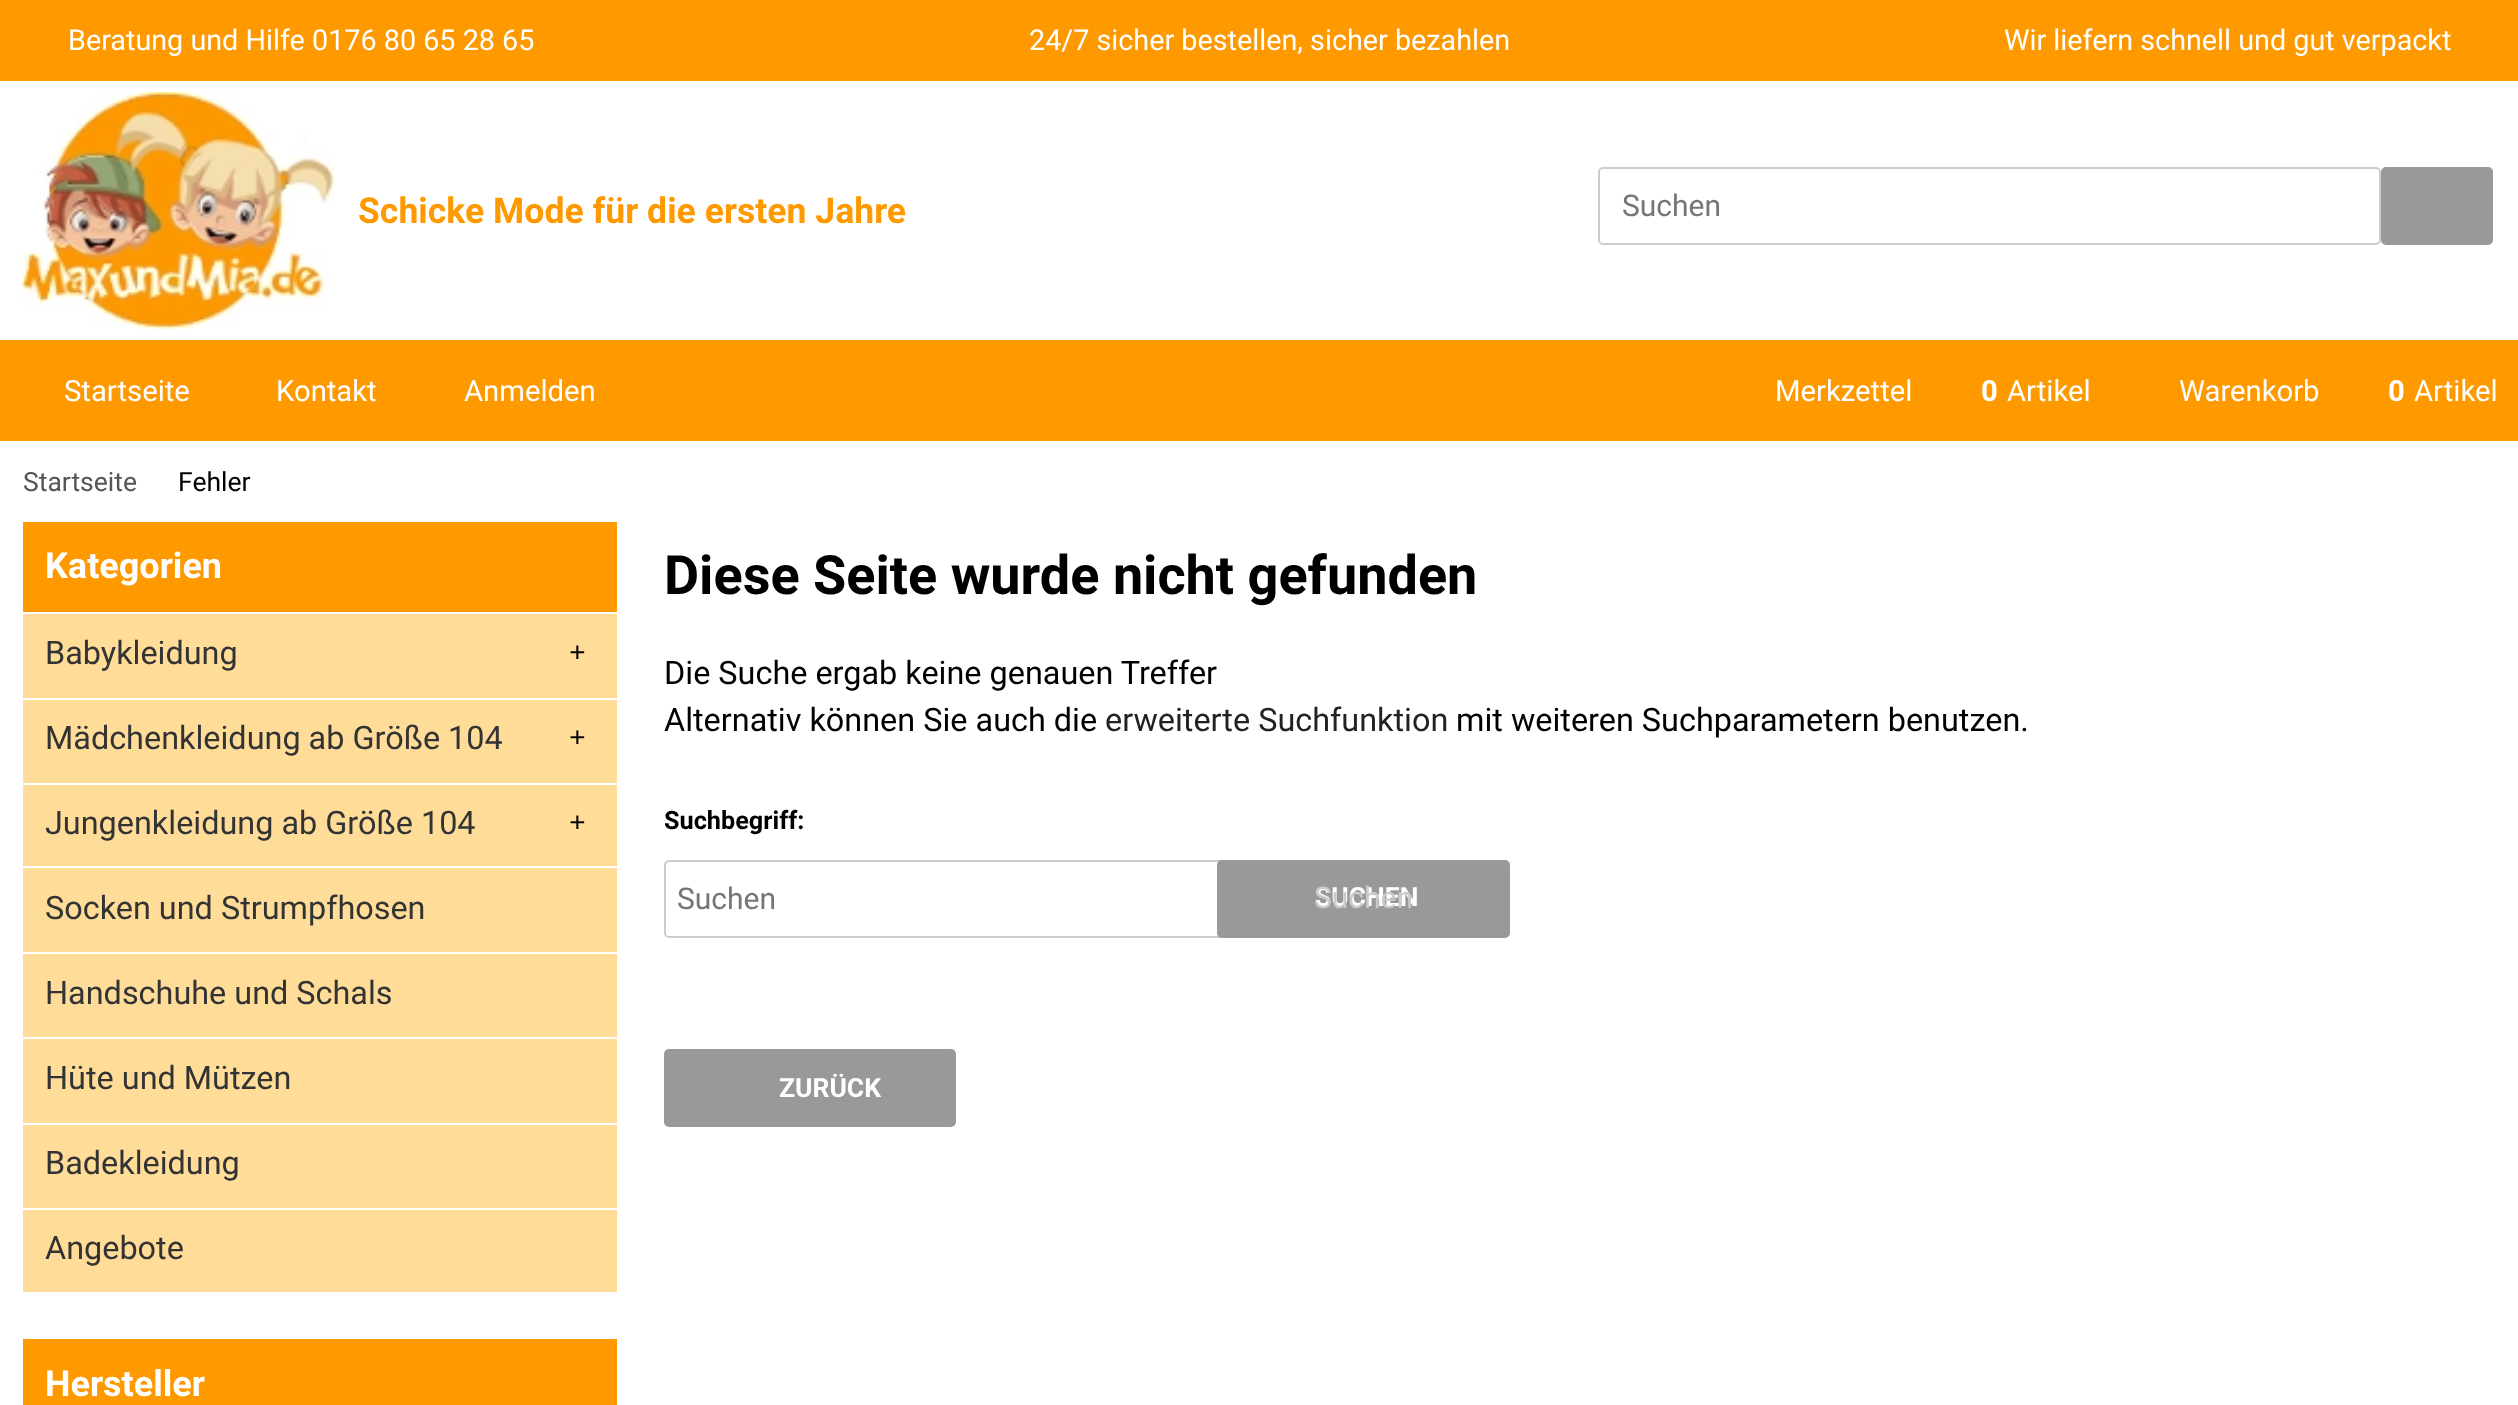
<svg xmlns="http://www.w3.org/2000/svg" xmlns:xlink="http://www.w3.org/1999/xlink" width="2518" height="1405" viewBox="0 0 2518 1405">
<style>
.cls-1{font:28.75px Roboto;fill:#ffffff}
.cls-2{font:bold 35.6px Roboto;fill:#ff9900}
.cls-3{font:30px Roboto;fill:#757575}
.cls-4{font:29.25px Roboto;fill:#ffffff}
.cls-5{font:bold 29.25px Roboto;fill:#ffffff}
.cls-6{font:26.5px Roboto;fill:#555555}
.cls-7{font:26.5px Roboto;fill:#000000}
.cls-8{font:bold 36px Roboto;fill:#ffffff}
.cls-9{font:32.4px Roboto;fill:#333333}
.cls-10{font:bold 29.25px Liberation Serif;fill:#000000}
.cls-11{font:bold 54px Roboto;fill:#000000}
.cls-12{font:32.4px Roboto;fill:#000000}
.cls-13{font:32.4px Roboto;fill:#222222}
.cls-14{font:bold 25.25px Roboto;fill:#000000}
.cls-15{font:bold 26.5px Roboto;fill:#ffffff}
.cls-16{font:30px Roboto;fill:#cacaca}
</style>
<rect width="100%" height="100%" fill="#ffffff"/>
<rect fill="#ff9900" x="0" y="0" width="2518" height="81"/>
<image xlink:href="image0.png" x="22" y="92" width="313" height="237"/>
<rect fill="none" stroke="#cccccc" stroke-width="2" x="1599" y="168" width="781" height="76" rx="4"/>
<rect fill="#999999" stroke="#999999" stroke-width="2" x="2382" y="168" width="110" height="76" rx="4"/>
<rect fill="#ff9900" x="0" y="340" width="2518" height="101"/>
<rect fill="#ff9900" x="23" y="522" width="594" height="90"/>
<rect fill="#ffdd99" x="23" y="614" width="594" height="84"/>
<rect fill="#ffdd99" x="23" y="700" width="594" height="83"/>
<rect fill="#ffdd99" x="23" y="785" width="594" height="167"/>
<rect fill="#ffffff" x="23" y="866" width="594" height="2"/>
<rect fill="#ffdd99" x="23" y="954" width="594" height="169"/>
<rect fill="#ffffff" x="23" y="1037" width="594" height="2"/>
<rect fill="#ffdd99" x="23" y="1125" width="594" height="167"/>
<rect fill="#ffffff" x="23" y="1208" width="594" height="2"/>
<rect fill="#ff9900" x="23" y="1339" width="594" height="66"/>
<rect fill="none" stroke="#cccccc" stroke-width="2" x="665" y="861" width="585" height="76" rx="4"/>
<rect fill="#999999" stroke="#999999" stroke-width="2" x="1218" y="861" width="291" height="76" rx="4"/>
<rect fill="#999999" stroke="#999999" stroke-width="2" x="665" y="1050" width="290" height="76" rx="4"/>
<text class="cls-1" x="68" y="50">Beratung und Hilfe 0176 80 65 28 65</text>
<text class="cls-1" x="1029" y="50">24/7 sicher bestellen, sicher bezahlen</text>
<text class="cls-1" x="2004" y="50">Wir liefern schnell und gut verpackt</text>
<text class="cls-2" x="358" y="223">Schicke Mode für die ersten Jahre</text>
<text class="cls-3" x="1622" y="216">Suchen</text>
<text class="cls-4" x="64" y="401">Startseite</text>
<text class="cls-4" x="276" y="401">Kontakt</text>
<text class="cls-4" x="464" y="401">Anmelden</text>
<text class="cls-4" x="1775" y="401">Merkzettel</text>
<text class="cls-5" x="1981" y="401">0</text>
<text class="cls-4" x="2007" y="401">Artikel</text>
<text class="cls-4" x="2179" y="401">Warenkorb</text>
<text class="cls-5" x="2388" y="401">0</text>
<text class="cls-4" x="2414" y="401">Artikel</text>
<text class="cls-6" x="23" y="491">Startseite</text>
<text class="cls-7" x="178" y="491">Fehler</text>
<text class="cls-8" x="45" y="578">Kategorien</text>
<text class="cls-9" x="45" y="664">Babykleidung</text>
<text class="cls-10" x="569" y="662">+</text>
<text class="cls-9" x="45" y="749">Mädchenkleidung ab Größe 104</text>
<text class="cls-10" x="569" y="747">+</text>
<text class="cls-9" x="45" y="834">Jungenkleidung ab Größe 104</text>
<text class="cls-10" x="569" y="832">+</text>
<text class="cls-9" x="45" y="919">Socken und Strumpfhosen</text>
<text class="cls-9" x="45" y="1004">Handschuhe und Schals</text>
<text class="cls-9" x="45" y="1089">Hüte und Mützen</text>
<text class="cls-9" x="45" y="1174">Badekleidung</text>
<text class="cls-9" x="45" y="1259">Angebote</text>
<text class="cls-8" x="45" y="1396">Hersteller</text>
<text class="cls-11" x="664" y="594">Diese Seite wurde nicht gefunden</text>
<text class="cls-12"><tspan x="664" y="684">Die Suche ergab keine genauen Treffer</tspan><tspan x="664" y="731">Alternativ können Sie auch die</tspan></text>
<text class="cls-13" x="1105" y="731">erweiterte Suchfunktion</text>
<text class="cls-12" x="1456" y="731">mit weiteren Suchparametern benutzen.</text>
<text class="cls-14" x="664" y="829">Suchbegriff:</text>
<text class="cls-3" x="677" y="909">Suchen</text>
<text class="cls-15" x="1315" y="906">SUCHEN</text>
<text class="cls-16" x="1314" y="908">Suchen</text>
<text class="cls-15" x="779" y="1097">ZURÜCK</text>
</svg>
